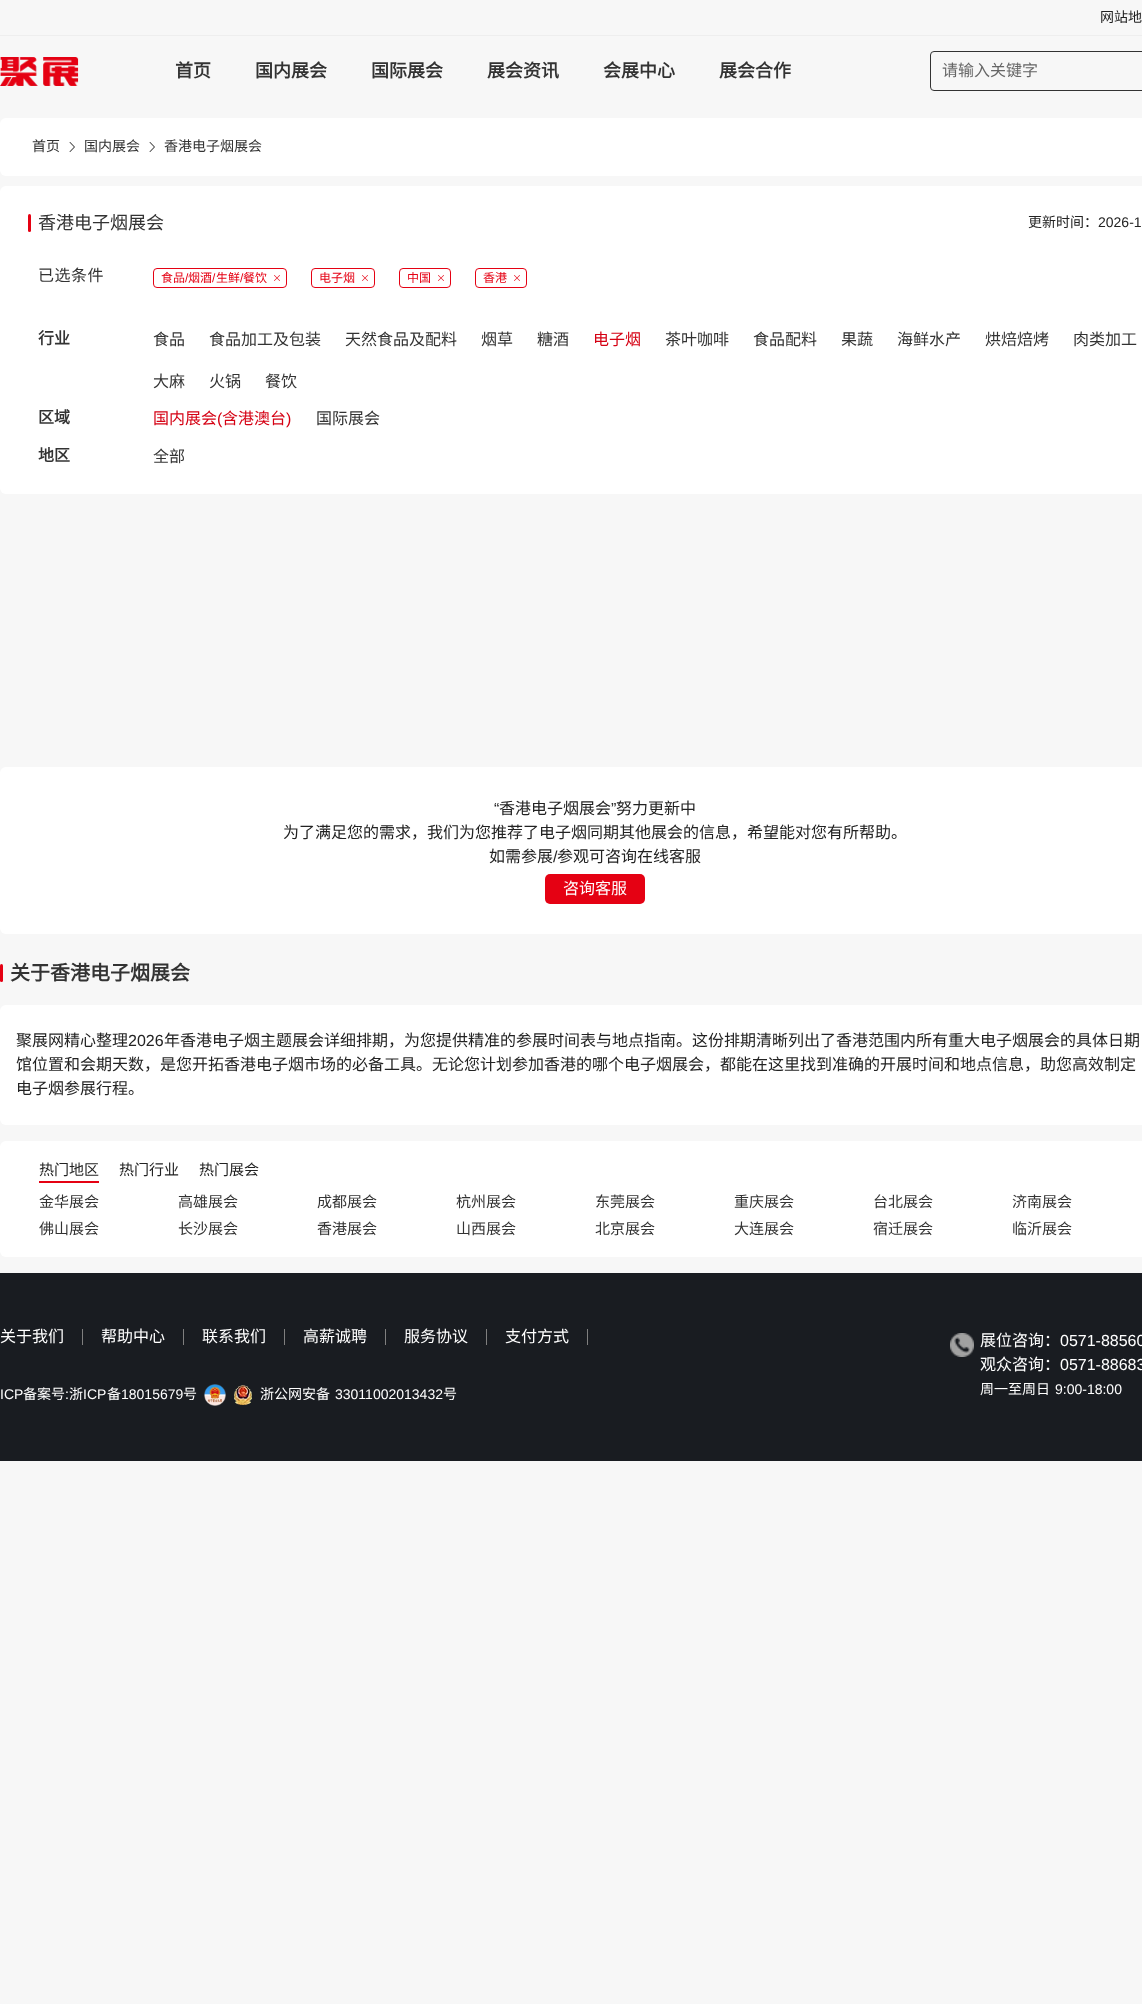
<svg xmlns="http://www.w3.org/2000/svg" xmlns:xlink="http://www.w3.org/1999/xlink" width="1142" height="2004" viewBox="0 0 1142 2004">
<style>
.cls-1{font:14px Noto Sans CJK SC;fill:#222222}
.cls-2{font:bold 18px Noto Sans CJK SC;fill:#333333}
.cls-3{font:16px Noto Sans CJK SC;fill:#666666}
.cls-4{font:14px Noto Sans CJK SC;fill:#333333}
.cls-5{font:18px Noto Sans CJK SC;fill:#333333}
.cls-6{font:14px Liberation Sans;fill:#222222}
.cls-7{font:16px Noto Sans CJK SC;letter-spacing:0.5px;fill:#333333}
.cls-8{font:12px Noto Sans CJK SC;fill:#e50113}
.cls-9{font:12px Liberation Sans;fill:#e50113}
.cls-10{font:bold 16px Noto Sans CJK SC;fill:#333333}
.cls-11{font:16px Noto Sans CJK SC;fill:#333333}
.cls-12{font:16px Noto Sans CJK SC;fill:#d50113}
.cls-13{font:16px Liberation Sans;fill:#d50113}
.cls-14{font:16px Liberation Sans;fill:#222222}
.cls-15{font:16px Noto Sans CJK SC;fill:#222222}
.cls-16{font:16px Noto Sans CJK SC;fill:#ffffff}
.cls-17{font:bold 20px Noto Sans CJK SC;fill:#333333}
.cls-18{font:15px Noto Sans CJK SC;fill:#222222}
.cls-19{font:15px Noto Sans CJK SC;fill:#333333}
.cls-20{font:14px Liberation Sans;fill:#ffffff}
.cls-21{font:14px Noto Sans CJK SC;fill:#ffffff}
.cls-22{font:16px Liberation Sans;fill:#ffffff}
</style>
<rect width="100%" height="100%" fill="#f7f7f7"/>
<rect fill="#eeeeee" x="0" y="35" width="1142" height="1"/>
<image xlink:href="image0.png" x="0" y="57" width="79" height="29"/>
<rect fill="none" stroke="#333333" x="930.5" y="51.5" width="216" height="39" rx="3.5"/>
<rect fill="#ffffff" x="0" y="118" width="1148" height="58" rx="6"/>
<image xlink:href="image1.png" x="69" y="142" width="6" height="10"/>
<image xlink:href="image1.png" x="149" y="142" width="6" height="10"/>
<rect fill="#ffffff" x="0" y="186" width="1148" height="308" rx="6"/>
<rect fill="#e50113" x="28" y="214" width="3" height="18" rx="1.5"/>
<rect fill="none" stroke="#e50113" x="153.5" y="268.5" width="133" height="19" rx="3.5"/>
<image xlink:href="image2.png" x="274" y="275" width="6" height="6"/>
<rect fill="none" stroke="#e50113" x="311.5" y="268.5" width="63" height="19" rx="3.5"/>
<image xlink:href="image2.png" x="362" y="275" width="6" height="6"/>
<rect fill="none" stroke="#e50113" x="399.5" y="268.5" width="51" height="19" rx="3.5"/>
<image xlink:href="image2.png" x="438" y="275" width="6" height="6"/>
<rect fill="none" stroke="#e50113" x="475.5" y="268.5" width="51" height="19" rx="3.5"/>
<image xlink:href="image2.png" x="514" y="275" width="6" height="6"/>
<rect fill="#ffffff" x="0" y="767" width="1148" height="167" rx="6"/>
<rect fill="#e50113" x="545" y="874" width="100" height="30" rx="5"/>
<rect fill="#e50113" x="0" y="964" width="3" height="18" rx="1.5"/>
<rect fill="#ffffff" x="0" y="1005" width="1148" height="120" rx="6"/>
<rect fill="#ffffff" x="0" y="1141" width="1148" height="116" rx="6"/>
<rect fill="#e50113" x="39" y="1181" width="60" height="2"/>
<rect fill="#191c21" x="0" y="1273" width="1142" height="188"/>
<rect fill="#7f7f7f" x="82" y="1329" width="1" height="16"/>
<rect fill="#7f7f7f" x="183" y="1329" width="1" height="16"/>
<rect fill="#7f7f7f" x="284" y="1329" width="1" height="16"/>
<rect fill="#7f7f7f" x="385" y="1329" width="1" height="16"/>
<rect fill="#7f7f7f" x="486" y="1329" width="1" height="16"/>
<rect fill="#7f7f7f" x="587" y="1329" width="1" height="16"/>
<image xlink:href="image3.png" x="204" y="1384" width="22" height="22"/>
<image xlink:href="image4.png" x="234" y="1385" width="18" height="20"/>
<image xlink:href="image5.png" x="950" y="1333" width="24" height="24"/>
<text class="cls-1" x="1100" y="22">网站地</text>
<text class="cls-2" x="175" y="77">首页</text>
<text class="cls-2" x="255" y="77">国内展会</text>
<text class="cls-2" x="371" y="77">国际展会</text>
<text class="cls-2" x="487" y="77">展会资讯</text>
<text class="cls-2" x="603" y="77">会展中心</text>
<text class="cls-2" x="719" y="77">展会合作</text>
<text class="cls-3" x="942" y="76">请输入关键字</text>
<text class="cls-4" x="32" y="151">首页</text>
<text class="cls-4" x="84" y="151">国内展会</text>
<text class="cls-4" x="164" y="151">香港电子烟展会</text>
<text class="cls-5" x="38" y="229">香港电子烟展会</text>
<text class="cls-1" x="1028" y="227">更新时间：</text>
<text class="cls-6" x="1098" y="227">2026-1</text>
<text class="cls-7" x="38" y="281">已选条件</text>
<text class="cls-8" x="161" y="282">食品</text>
<text class="cls-9" x="185" y="282">/</text>
<text class="cls-8" x="188" y="282">烟酒</text>
<text class="cls-9" x="212" y="282">/</text>
<text class="cls-8" x="216" y="282">生鲜</text>
<text class="cls-9" x="240" y="282">/</text>
<text class="cls-8" x="243" y="282">餐饮</text>
<text class="cls-8" x="319" y="282">电子烟</text>
<text class="cls-8" x="407" y="282">中国</text>
<text class="cls-8" x="483" y="282">香港</text>
<text class="cls-10" x="38" y="344">行业</text>
<text class="cls-11" x="153" y="345">食品</text>
<text class="cls-11" x="209" y="345">食品加工及包装</text>
<text class="cls-11" x="345" y="345">天然食品及配料</text>
<text class="cls-11" x="481" y="345">烟草</text>
<text class="cls-11" x="537" y="345">糖酒</text>
<text class="cls-12" x="593" y="345">电子烟</text>
<text class="cls-11" x="665" y="345">茶叶咖啡</text>
<text class="cls-11" x="753" y="345">食品配料</text>
<text class="cls-11" x="841" y="345">果蔬</text>
<text class="cls-11" x="897" y="345">海鲜水产</text>
<text class="cls-11" x="985" y="345">烘焙焙烤</text>
<text class="cls-11" x="1073" y="345">肉类加工</text>
<text class="cls-11" x="153" y="387">大麻</text>
<text class="cls-11" x="209" y="387">火锅</text>
<text class="cls-11" x="265" y="387">餐饮</text>
<text class="cls-10" x="38" y="423">区域</text>
<text class="cls-12" x="153" y="424">国内展会</text>
<text class="cls-13" x="217" y="424">(</text>
<text class="cls-12" x="222" y="424">含港澳台</text>
<text class="cls-13" x="286" y="424">)</text>
<text class="cls-11" x="316" y="424">国际展会</text>
<text class="cls-10" x="38" y="461">地区</text>
<text class="cls-11" x="153" y="462">全部</text>
<text class="cls-14" x="494" y="814">“</text>
<text class="cls-15" x="499" y="814">香港电子烟展会</text>
<text class="cls-14" x="611" y="814">”</text>
<text class="cls-15" x="616" y="814">努力更新中</text>
<text class="cls-15" x="283" y="838">为了满足您的需求，我们为您推荐了电子烟同期其他展会的信息，希望能对您有所帮助。</text>
<text class="cls-15" x="489" y="862">如需参展</text>
<text class="cls-14" x="553" y="862">/</text>
<text class="cls-15" x="557" y="862">参观可咨询在线客服</text>
<text class="cls-16" x="563" y="894">咨询客服</text>
<text class="cls-17" x="10" y="980">关于香港电子烟展会</text>
<text class="cls-15" x="16" y="1046">聚展网精心整理</text>
<text class="cls-14" x="128" y="1046">2026</text>
<text class="cls-15" x="164" y="1046">年香港电子烟主题展会详细排期，为您提供精准的参展时间表与地点指南。这份排期清晰列出了香港范围内所有重大电子烟展会的具体日期</text>
<text class="cls-15"><tspan x="16" y="1070">馆位置和会期天数，是您开拓香港电子烟市场的必备工具。无论您计划参加香港的哪个电子烟展会，都能在这里找到准确的开展时间和地点信息，助您高效制定</tspan><tspan x="16" y="1094">电子烟参展行程。</tspan></text>
<text class="cls-18" x="39" y="1175">热门地区</text>
<text class="cls-18" x="119" y="1175">热门行业</text>
<text class="cls-18" x="199" y="1175">热门展会</text>
<text class="cls-19" x="39" y="1207">金华展会</text>
<text class="cls-19" x="178" y="1207">高雄展会</text>
<text class="cls-19" x="317" y="1207">成都展会</text>
<text class="cls-19" x="456" y="1207">杭州展会</text>
<text class="cls-19" x="595" y="1207">东莞展会</text>
<text class="cls-19" x="734" y="1207">重庆展会</text>
<text class="cls-19" x="873" y="1207">台北展会</text>
<text class="cls-19" x="1012" y="1207">济南展会</text>
<text class="cls-19" x="39" y="1234">佛山展会</text>
<text class="cls-19" x="178" y="1234">长沙展会</text>
<text class="cls-19" x="317" y="1234">香港展会</text>
<text class="cls-19" x="456" y="1234">山西展会</text>
<text class="cls-19" x="595" y="1234">北京展会</text>
<text class="cls-19" x="734" y="1234">大连展会</text>
<text class="cls-19" x="873" y="1234">宿迁展会</text>
<text class="cls-19" x="1012" y="1234">临沂展会</text>
<text class="cls-16" x="0" y="1342">关于我们</text>
<text class="cls-16" x="101" y="1342">帮助中心</text>
<text class="cls-16" x="202" y="1342">联系我们</text>
<text class="cls-16" x="303" y="1342">高薪诚聘</text>
<text class="cls-16" x="404" y="1342">服务协议</text>
<text class="cls-16" x="505" y="1342">支付方式</text>
<text class="cls-20" x="0" y="1399">ICP</text>
<text class="cls-21" x="23" y="1399">备案号</text>
<text class="cls-20" x="65" y="1399">:</text>
<text class="cls-21" x="69" y="1399">浙</text>
<text class="cls-20" x="83" y="1399">ICP</text>
<text class="cls-21" x="107" y="1399">备</text>
<text class="cls-20" x="121" y="1399">18015679</text>
<text class="cls-21" x="183" y="1399">号</text>
<text class="cls-21" x="260" y="1399">浙公网安备</text>
<text class="cls-20" x="335" y="1399">33011002013432</text>
<text class="cls-21" x="443" y="1399">号</text>
<text class="cls-16" x="980" y="1346">展位咨询：</text>
<text class="cls-22" x="1060" y="1346">0571-88560</text>
<text class="cls-16" x="980" y="1370">观众咨询：</text>
<text class="cls-22" x="1060" y="1370">0571-88683</text>
<text class="cls-21" x="980" y="1394">周一至周日</text>
<text class="cls-20" x="1055" y="1394">9:00-18:00</text>
</svg>
